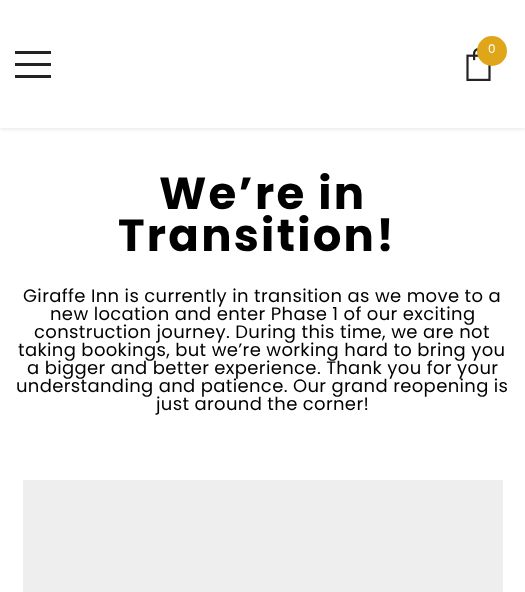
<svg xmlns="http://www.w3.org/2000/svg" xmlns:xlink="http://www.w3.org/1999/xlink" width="525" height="592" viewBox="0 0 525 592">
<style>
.cls-1{font:12px Poppins;fill:#ffffff}
.cls-2{font:bold 45px Poppins;letter-spacing:2.25px;fill:#000000}
.cls-3{font:18px Poppins;letter-spacing:0.35px;fill:#000000}
</style>
<rect width="100%" height="100%" fill="#ffffff"/>
<rect fill="#000000" fill-opacity="0.1" filter="blur(2px)" x="0" y="2" width="525" height="127"/>
<rect fill="#ffffff" x="0" y="0" width="525" height="128"/>
<image xlink:href="image0.png" x="466" y="48" width="25" height="33"/>
<circle fill="#e0a61a" cx="492" cy="51" r="15"/>
<rect fill="#232323" x="15" y="63" width="36" height="3"/>
<rect fill="#232323" x="15" y="51" width="36" height="3"/>
<rect fill="#232323" x="15" y="75" width="36" height="3"/>
<rect fill="#eeeeee" x="23" y="480" width="480" height="112"/>
<text class="cls-1" x="488" y="53">0</text>
<text class="cls-2" x="159" y="209">We’re in</text>
<text class="cls-2" x="118" y="251">Transition!</text>
<text class="cls-3" x="23" y="302">Giraffe Inn is currently in transition as we move to a</text>
<text class="cls-3" x="50" y="320">new location and enter Phase 1 of our exciting</text>
<text class="cls-3" x="34" y="338">construction journey. During this time, we are not</text>
<text class="cls-3" x="18" y="356">taking bookings, but we’re working hard to bring you</text>
<text class="cls-3" x="27" y="374">a bigger and better experience. Thank you for your</text>
<text class="cls-3" x="16" y="392">understanding and patience. Our grand reopening is</text>
<text class="cls-3" x="156" y="410">just around the corner!</text>
</svg>
